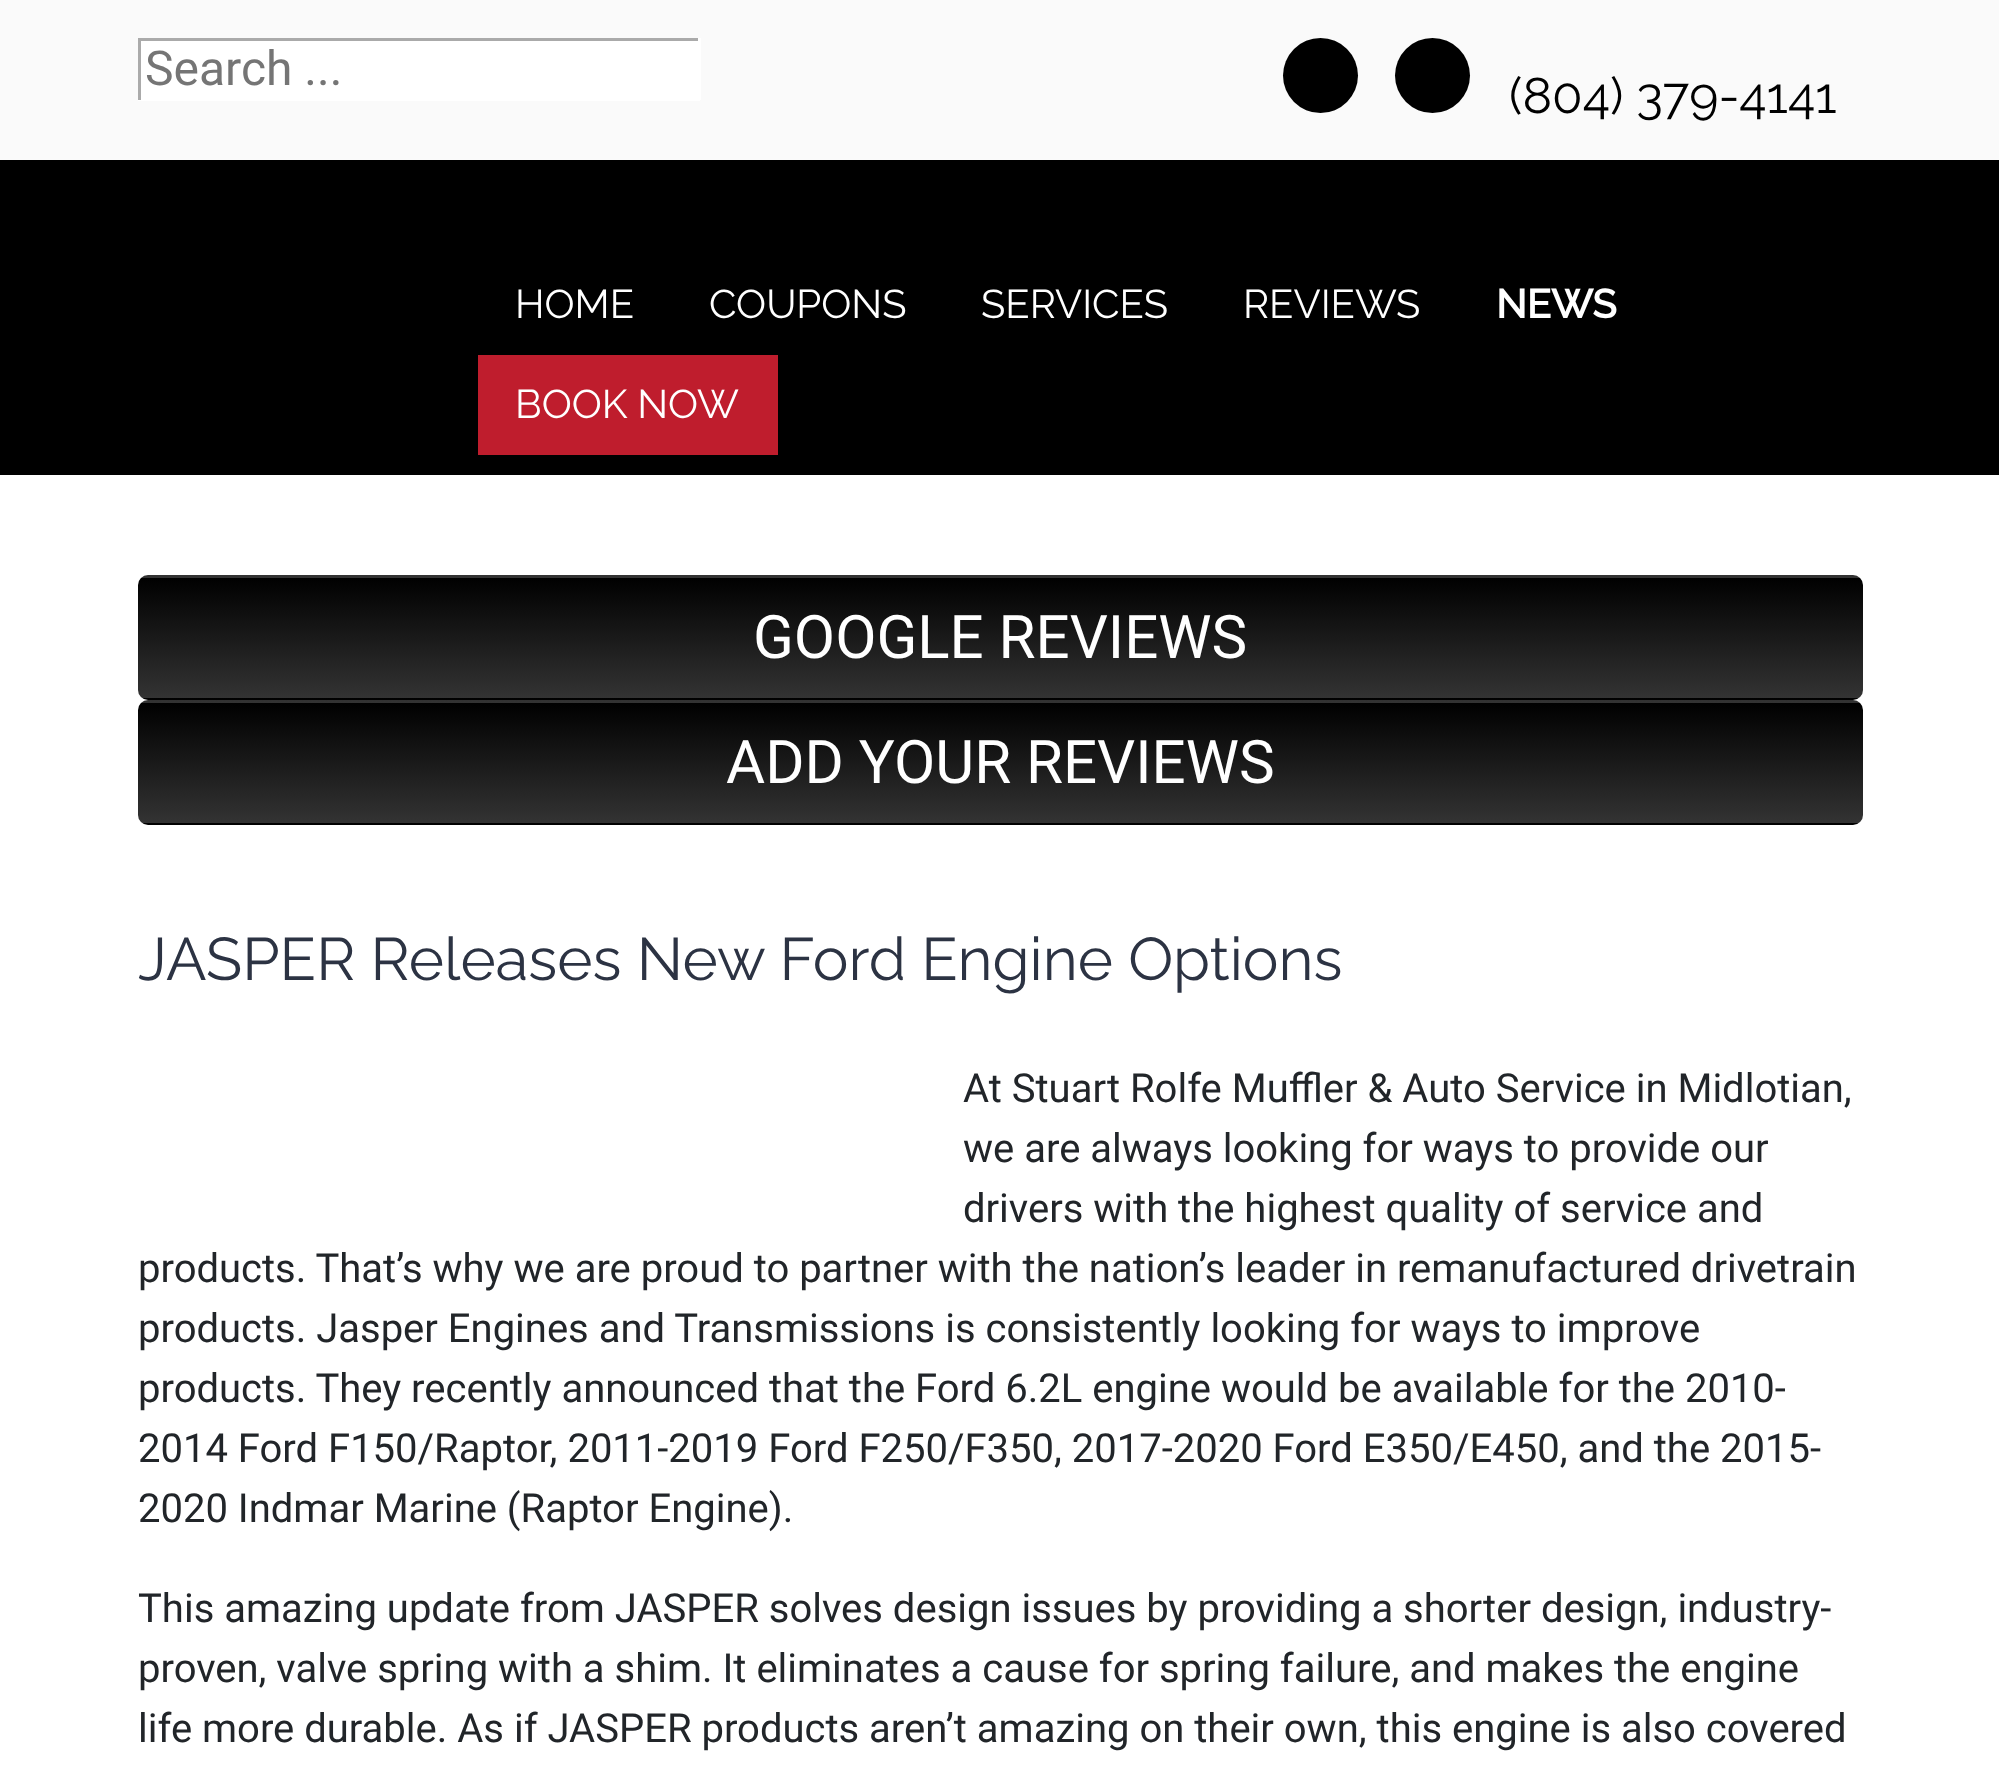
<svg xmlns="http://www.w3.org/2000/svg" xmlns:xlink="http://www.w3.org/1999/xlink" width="1999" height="1783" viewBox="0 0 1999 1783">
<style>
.cls-1{font:48px Roboto;fill:#757575}
.cls-2{font:50px Raleway;fill:#000000}
.cls-3{font:40px Raleway;fill:#ffffff}
.cls-4{font:bold 40px Raleway;fill:#ffffff}
.cls-5{font:60px Roboto;fill:#ffffff}
.cls-6{font:60px Raleway;fill:#2c3343}
.cls-7{font:40px Roboto;fill:#212529}
</style>
<defs>
<clipPath id="clip1"><rect x="138" y="575" width="1725" height="125" rx="10"/></clipPath>
<linearGradient id="g1" gradientUnits="userSpaceOnUse" x1="1000" y1="457" x2="1000" y2="578"><stop offset="0" stop-color="#000000"/><stop offset="1" stop-color="#333333"/></linearGradient>
<linearGradient id="g2" gradientUnits="userSpaceOnUse" x1="1000" y1="577" x2="1000" y2="698"><stop offset="0" stop-color="#000000"/><stop offset="1" stop-color="#333333"/></linearGradient>
<linearGradient id="g3" gradientUnits="userSpaceOnUse" x1="1000" y1="697" x2="1000" y2="818"><stop offset="0" stop-color="#000000"/><stop offset="1" stop-color="#333333"/></linearGradient>
<clipPath id="clip2"><rect x="138" y="700" width="1725" height="125" rx="10"/></clipPath>
<linearGradient id="g4" gradientUnits="userSpaceOnUse" x1="1000" y1="582" x2="1000" y2="703"><stop offset="0" stop-color="#000000"/><stop offset="1" stop-color="#333333"/></linearGradient>
<linearGradient id="g5" gradientUnits="userSpaceOnUse" x1="1000" y1="702" x2="1000" y2="823"><stop offset="0" stop-color="#000000"/><stop offset="1" stop-color="#333333"/></linearGradient>
<linearGradient id="g6" gradientUnits="userSpaceOnUse" x1="1000" y1="822" x2="1000" y2="943"><stop offset="0" stop-color="#000000"/><stop offset="1" stop-color="#333333"/></linearGradient>
</defs>
<rect width="100%" height="100%" fill="#fafafa"/>
<rect fill="#ffffff" x="141" y="41" width="557" height="57"/>
<rect fill="#aaaaaa" x="138" y="38" width="562" height="3"/>
<rect fill="#ffffff" x="698" y="38" width="3" height="62"/>
<rect fill="#ffffff" x="138" y="98" width="562" height="3"/>
<rect fill="#aaaaaa" x="138" y="38" width="3" height="62"/>
<circle fill="#000000" cx="1320.5" cy="75.5" r="37.5"/>
<circle fill="#000000" cx="1432.5" cy="75.5" r="37.5"/>
<rect fill="#000000" x="0" y="160" width="1999" height="315"/>
<rect fill="#bf1d2d" x="478" y="355" width="300" height="100"/>
<rect fill="#ffffff" x="0" y="475" width="1999" height="1308"/>
<g clip-path="url(#clip1)">
<rect fill="url(#g1)" x="138" y="575" width="1725" height="3"/>
<rect fill="url(#g2)" x="138" y="578" width="1725" height="120"/>
<rect fill="url(#g3)" x="138" y="698" width="1725" height="2"/>
</g>
<g clip-path="url(#clip2)">
<rect fill="url(#g4)" x="138" y="700" width="1725" height="3"/>
<rect fill="url(#g5)" x="138" y="703" width="1725" height="120"/>
<rect fill="url(#g6)" x="138" y="823" width="1725" height="2"/>
</g>
<text class="cls-1" x="145" y="85">Search ...</text>
<text class="cls-2" x="1509" y="113">(804) 379-4141</text>
<text class="cls-3" x="515" y="318">HOME</text>
<text class="cls-3" x="709" y="318">COUPONS</text>
<text class="cls-3" x="981" y="318">SERVICES</text>
<text class="cls-3" x="1243" y="318">REVIEWS</text>
<text class="cls-4" x="1496" y="318">NEWS</text>
<text class="cls-3" x="515" y="418">BOOK NOW</text>
<text class="cls-5" x="753" y="658">GOOGLE REVIEWS</text>
<text class="cls-5" x="726" y="783">ADD YOUR REVIEWS</text>
<text class="cls-6" x="138" y="980">JASPER Releases New Ford Engine Options</text>
<text class="cls-7"><tspan x="963" y="1102">At Stuart Rolfe Muffler &amp; Auto Service in Midlotian,</tspan><tspan x="963" y="1162">we are always looking for ways to provide our</tspan><tspan x="963" y="1222">drivers with the highest quality of service and</tspan></text>
<text class="cls-7"><tspan x="138" y="1282">products. That’s why we are proud to partner with the nation’s leader in remanufactured drivetrain</tspan><tspan x="138" y="1342">products. Jasper Engines and Transmissions is consistently looking for ways to improve</tspan><tspan x="138" y="1402">products. They recently announced that the Ford 6.2L engine would be available for the 2010-</tspan><tspan x="138" y="1462">2014 Ford F150/Raptor, 2011-2019 Ford F250/F350, 2017-2020 Ford E350/E450, and the 2015-</tspan><tspan x="138" y="1522">2020 Indmar Marine (Raptor Engine).</tspan></text>
<text class="cls-7"><tspan x="138" y="1622">This amazing update from JASPER solves design issues by providing a shorter design, industry-</tspan><tspan x="138" y="1682">proven, valve spring with a shim. It eliminates a cause for spring failure, and makes the engine</tspan><tspan x="138" y="1742">life more durable. As if JASPER products aren’t amazing on their own, this engine is also covered</tspan></text>
</svg>
